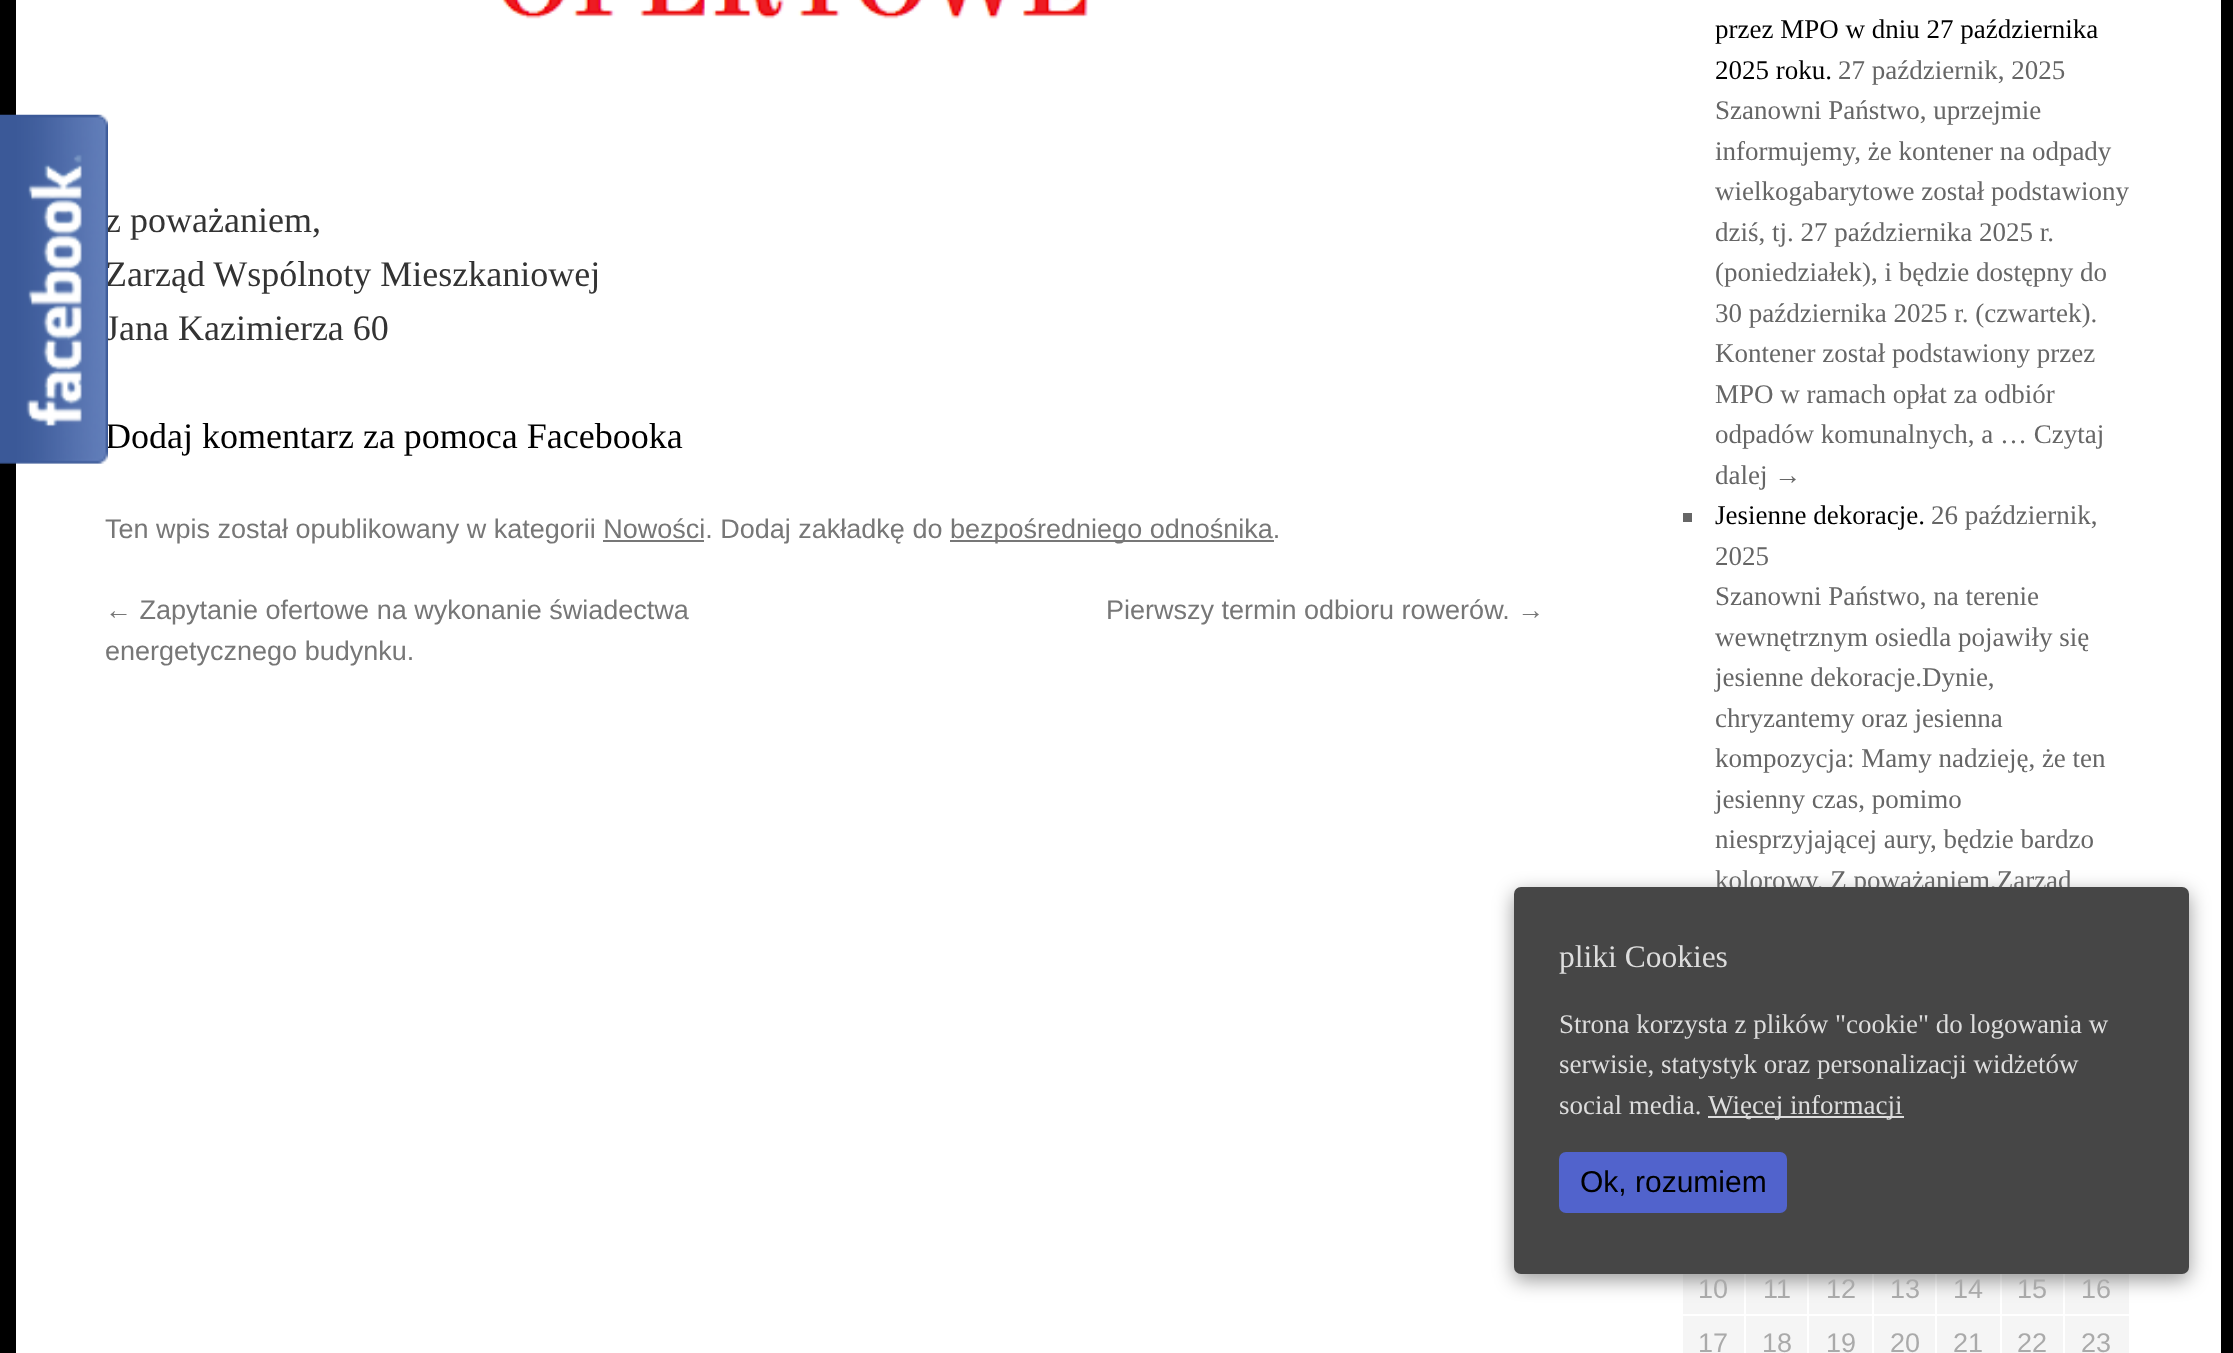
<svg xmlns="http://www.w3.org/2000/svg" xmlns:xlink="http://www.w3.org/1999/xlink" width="2233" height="1353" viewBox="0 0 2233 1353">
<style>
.cls-1{font:36px Liberation Serif;fill:#333333}
.cls-2{font:36px Liberation Serif;fill:#000000}
.cls-3{font:27px Liberation Sans;fill:#777777}
.cls-4{font:27px Liberation Serif;fill:#000000}
.cls-5{font:27px Liberation Serif;fill:#666666}
.cls-6{font:27px Liberation Sans;fill:#aaaaaa}
.cls-7{font:31.5px Liberation Serif;fill:#dddddd}
.cls-8{font:27px Liberation Serif;fill:#dddddd}
.cls-9{font:30px Liberation Sans;fill:#000000}
</style>
<defs>
<clipPath id="clip1"><rect x="106" y="590" width="1440" height="81"/></clipPath>
</defs>
<rect width="100%" height="100%" fill="#000000"/>
<rect fill="#ffffff" x="16" y="0" width="2205" height="1353"/>
<image xlink:href="image1.png" x="501" y="0" width="587" height="19"/>
<rect fill="#777777" x="950" y="540" width="324" height="2"/>
<rect fill="#777777" x="603" y="540" width="101" height="2"/>
<rect fill="#666666" x="1683" y="513" width="9" height="9"/>
<rect fill="#f5f5f5" x="1683" y="1274" width="61" height="40"/>
<rect fill="#f5f5f5" x="1746" y="1274" width="61" height="40"/>
<rect fill="#f5f5f5" x="1809" y="1274" width="63" height="40"/>
<rect fill="#f5f5f5" x="1874" y="1274" width="61" height="40"/>
<rect fill="#f5f5f5" x="1937" y="1274" width="63" height="40"/>
<rect fill="#f5f5f5" x="2002" y="1274" width="127" height="40"/>
<rect fill="#f5f5f5" x="1683" y="1316" width="61" height="37"/>
<rect fill="#f5f5f5" x="1746" y="1316" width="61" height="37"/>
<rect fill="#f5f5f5" x="1809" y="1316" width="63" height="37"/>
<rect fill="#f5f5f5" x="1874" y="1316" width="61" height="37"/>
<rect fill="#f5f5f5" x="1937" y="1316" width="63" height="37"/>
<rect fill="#f5f5f5" x="2002" y="1316" width="127" height="37"/>
<rect fill="#ffffff" x="2063" y="1274" width="2" height="79"/>
<rect fill="#000000" fill-opacity="0.4" filter="blur(10px)" x="1514" y="893" width="675" height="387" rx="7"/>
<text class="cls-1"><tspan x="105" y="232">z poważaniem,</tspan><tspan x="105" y="286">Zarząd Wspólnoty Mieszkaniowej</tspan><tspan x="105" y="340">Jana Kazimierza 60</tspan></text>
<text class="cls-2" x="105" y="448">Dodaj komentarz za pomoca Facebooka</text>
<image xlink:href="image0.png" x="0" y="114" width="108" height="350"/>
<text class="cls-3" x="105" y="538">Ten wpis został opublikowany w kategorii Nowości. Dodaj zakładkę do</text>
<text class="cls-3" x="950" y="538">bezpośredniego odnośnika.</text>
<text class="cls-3" x="105" y="619">← Zapytanie ofertowe na wykonanie świadectwa</text>
<g clip-path="url(#clip1)">
<text class="cls-3" x="105" y="660">energetycznego budynku.</text>
</g>
<text class="cls-3" x="1106" y="619">Pierwszy termin odbioru rowerów. →</text>
<text class="cls-4"><tspan x="1715" y="38">przez MPO w dniu 27 października</tspan><tspan x="1715" y="79">2025 roku.</tspan></text>
<text class="cls-5" x="1838" y="79">27 październik, 2025</text>
<text class="cls-5"><tspan x="1715" y="119">Szanowni Państwo, uprzejmie</tspan><tspan x="1715" y="160">informujemy, że kontener na odpady</tspan><tspan x="1715" y="200">wielkogabarytowe został podstawiony</tspan><tspan x="1715" y="241">dziś, tj. 27 października 2025 r.</tspan><tspan x="1715" y="281">(poniedziałek), i będzie dostępny do</tspan><tspan x="1715" y="322">30 października 2025 r. (czwartek).</tspan><tspan x="1715" y="362">Kontener został podstawiony przez</tspan><tspan x="1715" y="403">MPO w ramach opłat za odbiór</tspan><tspan x="1715" y="443">odpadów komunalnych, a … Czytaj</tspan><tspan x="1715" y="484">dalej →</tspan></text>
<text class="cls-4" x="1715" y="524">Jesienne dekoracje.</text>
<text class="cls-5" x="1931" y="524">26 październik,</text>
<text class="cls-5"><tspan x="1715" y="565">2025</tspan><tspan x="1715" y="605">Szanowni Państwo, na terenie</tspan><tspan x="1715" y="646">wewnętrznym osiedla pojawiły się</tspan><tspan x="1715" y="686">jesienne dekoracje.Dynie,</tspan><tspan x="1715" y="727">chryzantemy oraz jesienna</tspan><tspan x="1715" y="767">kompozycja: Mamy nadzieję, że ten</tspan><tspan x="1715" y="808">jesienny czas, pomimo</tspan><tspan x="1715" y="848">niesprzyjającej aury, będzie bardzo</tspan><tspan x="1715" y="889">kolorowy. Z poważaniem,Zarząd</tspan></text>
<text class="cls-6" x="1698" y="1298">10</text>
<text class="cls-6" x="1763" y="1298">11</text>
<text class="cls-6" x="1826" y="1298">12</text>
<text class="cls-6" x="1890" y="1298">13</text>
<text class="cls-6" x="1953" y="1298">14</text>
<text class="cls-6" x="2017" y="1298">15</text>
<text class="cls-6" x="2081" y="1298">16</text>
<text class="cls-6" x="1698" y="1352">17</text>
<text class="cls-6" x="1762" y="1352">18</text>
<text class="cls-6" x="1826" y="1352">19</text>
<text class="cls-6" x="1890" y="1352">20</text>
<text class="cls-6" x="1953" y="1352">21</text>
<text class="cls-6" x="2017" y="1352">22</text>
<text class="cls-6" x="2081" y="1352">23</text>
<rect fill="#464646" x="1514" y="887" width="675" height="387" rx="7"/>
<text class="cls-7" x="1559" y="967">pliki Cookies</text>
<text class="cls-8"><tspan x="1559" y="1033">Strona korzysta z plików "cookie" do logowania w</tspan><tspan x="1559" y="1073">serwisie, statystyk oraz personalizacji widżetów</tspan><tspan x="1559" y="1114">social media.</tspan></text>
<rect fill="#dddddd" x="1708" y="1116" width="196" height="2"/>
<text class="cls-8" x="1708" y="1114">Więcej informacji</text>
<rect fill="#5163cc" x="1559" y="1152" width="228" height="61" rx="7"/>
<text class="cls-9" x="1580" y="1192">Ok, rozumiem</text>
</svg>
